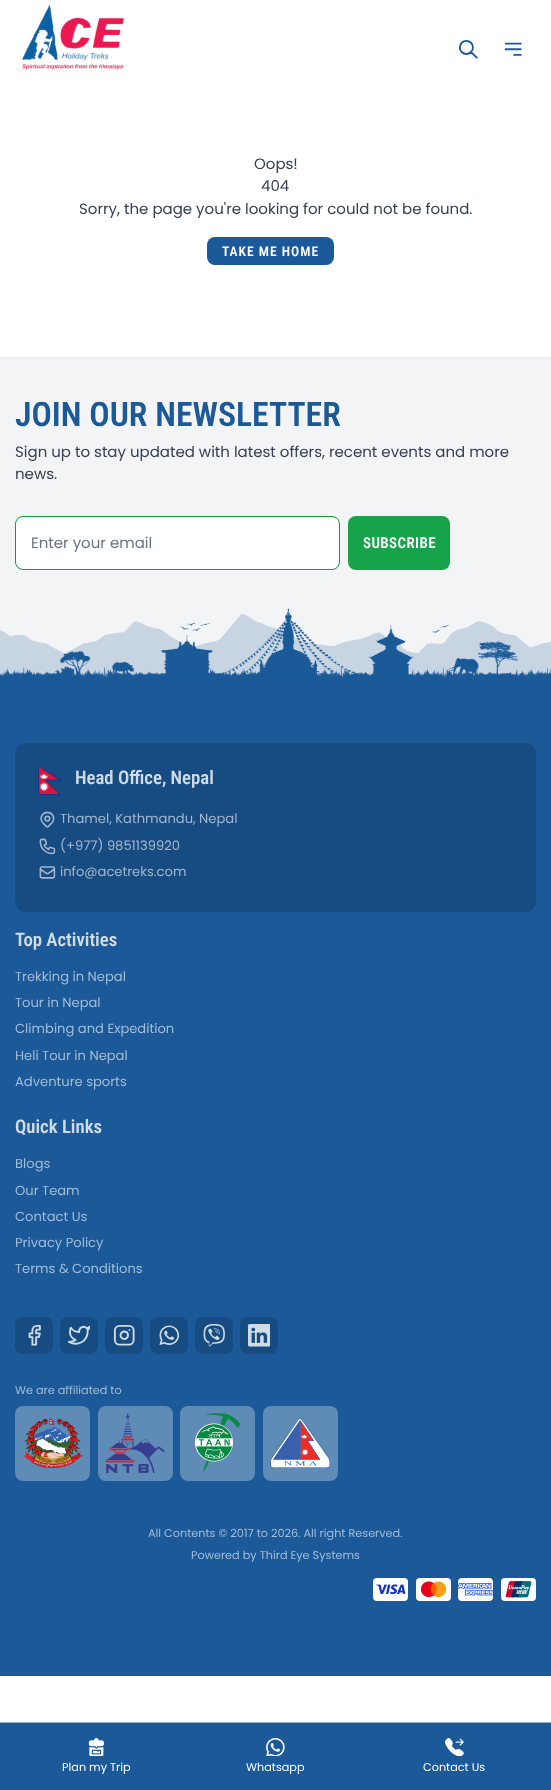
<svg xmlns="http://www.w3.org/2000/svg" xmlns:xlink="http://www.w3.org/1999/xlink" width="551" height="1790" viewBox="0 0 551 1790">
<style>
.cls-1{font:15px Poppins;fill:#374151}
.cls-2{font:600 13.5px Roboto Condensed;letter-spacing:1px;fill:#ffffff}
.cls-3{font:600 33.75px Roboto Condensed;fill:#1b5998}
.cls-4{font:15px Poppins;fill:#6b7280}
.cls-5{font:600 15px Roboto Condensed;letter-spacing:0.4px;fill:#ffffff}
.cls-6{font:600 18.75px Roboto Condensed;fill:#d1dbe6}
.cls-7{font:13.1px Poppins;fill:#a2b7cd}
.cls-8{font:13.1px Poppins;fill:#a4bdd6}
.cls-9{font:11.25px Poppins;fill:#a4bdd6}
.cls-10{font:11.25px Poppins;fill:#ffffff}
</style>
<rect width="100%" height="100%" fill="#ffffff"/>
<image xlink:href="image0.png" x="22" y="4" width="103" height="66"/>
<image xlink:href="image1.png" x="458" y="40" width="20" height="19"/>
<image xlink:href="image2.png" x="504" y="42" width="18" height="14"/>
<rect fill="#1b5998" x="207" y="237" width="127" height="28" rx="8"/>
<rect fill="#f3f4f6" x="0" y="358" width="551" height="320"/>
<rect fill="#e5e7eb" x="0" y="357" width="551" height="1"/>
<rect fill="#ffffff" stroke="#0f9d3e" x="15.5" y="516.5" width="324" height="53" rx="7.5"/>
<rect fill="#16a34a" x="348" y="516" width="102" height="54" rx="8"/>
<image xlink:href="image3.png" x="0" y="608" width="551" height="75"/>
<rect fill="#1b5998" x="0" y="683" width="551" height="993"/>
<rect fill="#174c82" x="15" y="743" width="521" height="169" rx="11"/>
<image xlink:href="image4.png" x="38" y="766" width="24" height="29"/>
<image xlink:href="image5.png" x="40" y="811" width="15" height="17"/>
<image xlink:href="image6.png" x="39" y="838" width="17" height="17"/>
<image xlink:href="image7.png" x="39" y="866" width="17" height="13"/>
<rect fill="#174c82" x="15" y="1317" width="38" height="37" rx="8"/>
<image xlink:href="image8.png" x="28" y="1325" width="13" height="21"/>
<rect fill="#174c82" x="60" y="1317" width="38" height="37" rx="8"/>
<image xlink:href="image9.png" x="68" y="1325" width="22" height="20"/>
<rect fill="#174c82" x="105" y="1317" width="38" height="37" rx="8"/>
<image xlink:href="image10.png" x="113" y="1325" width="22" height="21"/>
<rect fill="#174c82" x="150" y="1317" width="38" height="37" rx="8"/>
<image xlink:href="image11.png" x="159" y="1325" width="21" height="20"/>
<rect fill="#174c82" x="195" y="1317" width="38" height="37" rx="8"/>
<image xlink:href="image12.png" x="203" y="1324" width="22" height="23"/>
<rect fill="#174c82" x="240" y="1317" width="38" height="37" rx="8"/>
<image xlink:href="image13.png" x="248" y="1324" width="22" height="23"/>
<rect fill="#5f8bb7" x="15" y="1406" width="75" height="75" rx="8"/>
<image xlink:href="image14.png" x="23" y="1418" width="60" height="50"/>
<rect fill="#5f8bb7" x="98" y="1406" width="75" height="75" rx="8"/>
<image xlink:href="image15.png" x="105" y="1413" width="60" height="60"/>
<rect fill="#5f8bb7" x="180" y="1406" width="75" height="75" rx="8"/>
<image xlink:href="image16.png" x="195" y="1413" width="45" height="60"/>
<rect fill="#5f8bb7" x="263" y="1406" width="75" height="75" rx="8"/>
<image xlink:href="image17.png" x="270" y="1418" width="60" height="50"/>
<rect fill="#ffffff" x="373" y="1578" width="35" height="23" rx="4"/>
<image xlink:href="image18.png" x="375" y="1584" width="31" height="11"/>
<rect fill="#ffffff" x="416" y="1578" width="35" height="23" rx="4"/>
<image xlink:href="image19.png" x="420" y="1581" width="27" height="17"/>
<rect fill="#ffffff" x="458" y="1578" width="35" height="23" rx="4"/>
<image xlink:href="image20.png" x="458" y="1583" width="35" height="13"/>
<rect fill="#ffffff" x="501" y="1578" width="35" height="23" rx="4"/>
<image xlink:href="image21.png" x="505" y="1581" width="27" height="17"/>
<rect fill="#1b5998" x="0" y="1723" width="551" height="67"/>
<rect fill="#8daccc" x="0" y="1722" width="551" height="1"/>
<image xlink:href="image22.png" x="88" y="1738" width="16" height="18"/>
<image xlink:href="image23.png" x="266" y="1738" width="19" height="18"/>
<image xlink:href="image24.png" x="445" y="1738" width="19" height="18"/>
<text class="cls-1" x="254" y="169">Oops!</text>
<text class="cls-1" x="261" y="191">404</text>
<text class="cls-1" x="79" y="214">Sorry, the page you're looking for could not be found.</text>
<text class="cls-2" x="222" y="256">TAKE ME HOME</text>
<text class="cls-3" x="15" y="426">JOIN OUR NEWSLETTER</text>
<text class="cls-1"><tspan x="15" y="457">Sign up to stay updated with latest offers, recent events and more</tspan><tspan x="15" y="479">news.</tspan></text>
<text class="cls-4" x="31" y="548">Enter your email</text>
<text class="cls-5" x="363" y="548">SUBSCRIBE</text>
<text class="cls-6" x="75" y="784">Head Office, Nepal</text>
<text class="cls-7" x="60" y="823">Thamel, Kathmandu, Nepal</text>
<text class="cls-7"><tspan x="60" y="850">(+977) 9851139920</tspan><tspan x="60" y="876">info@acetreks.com</tspan></text>
<text class="cls-6" x="15" y="946">Top Activities</text>
<text class="cls-8"><tspan x="15" y="981">Trekking in Nepal</tspan><tspan x="15" y="1007">Tour in Nepal</tspan><tspan x="15" y="1033">Climbing and Expedition</tspan></text>
<text class="cls-8"><tspan x="15" y="1060">Heli Tour in Nepal</tspan><tspan x="15" y="1086">Adventure sports</tspan></text>
<text class="cls-6" x="15" y="1133">Quick Links</text>
<text class="cls-8" x="15" y="1168">Blogs</text>
<text class="cls-8"><tspan x="15" y="1195">Our Team</tspan><tspan x="15" y="1221">Contact Us</tspan><tspan x="15" y="1247">Privacy Policy</tspan><tspan x="15" y="1273">Terms &amp; Conditions</tspan></text>
<text class="cls-9" x="15" y="1394">We are affiliated to</text>
<text class="cls-9" x="148" y="1537">All Contents © 2017 to 2026. All right Reserved.</text>
<text class="cls-9" x="191" y="1559">Powered by Third Eye Systems</text>
<text class="cls-10" x="62" y="1771">Plan my Trip</text>
<text class="cls-10" x="246" y="1771">Whatsapp</text>
<text class="cls-10" x="423" y="1771">Contact Us</text>
</svg>
